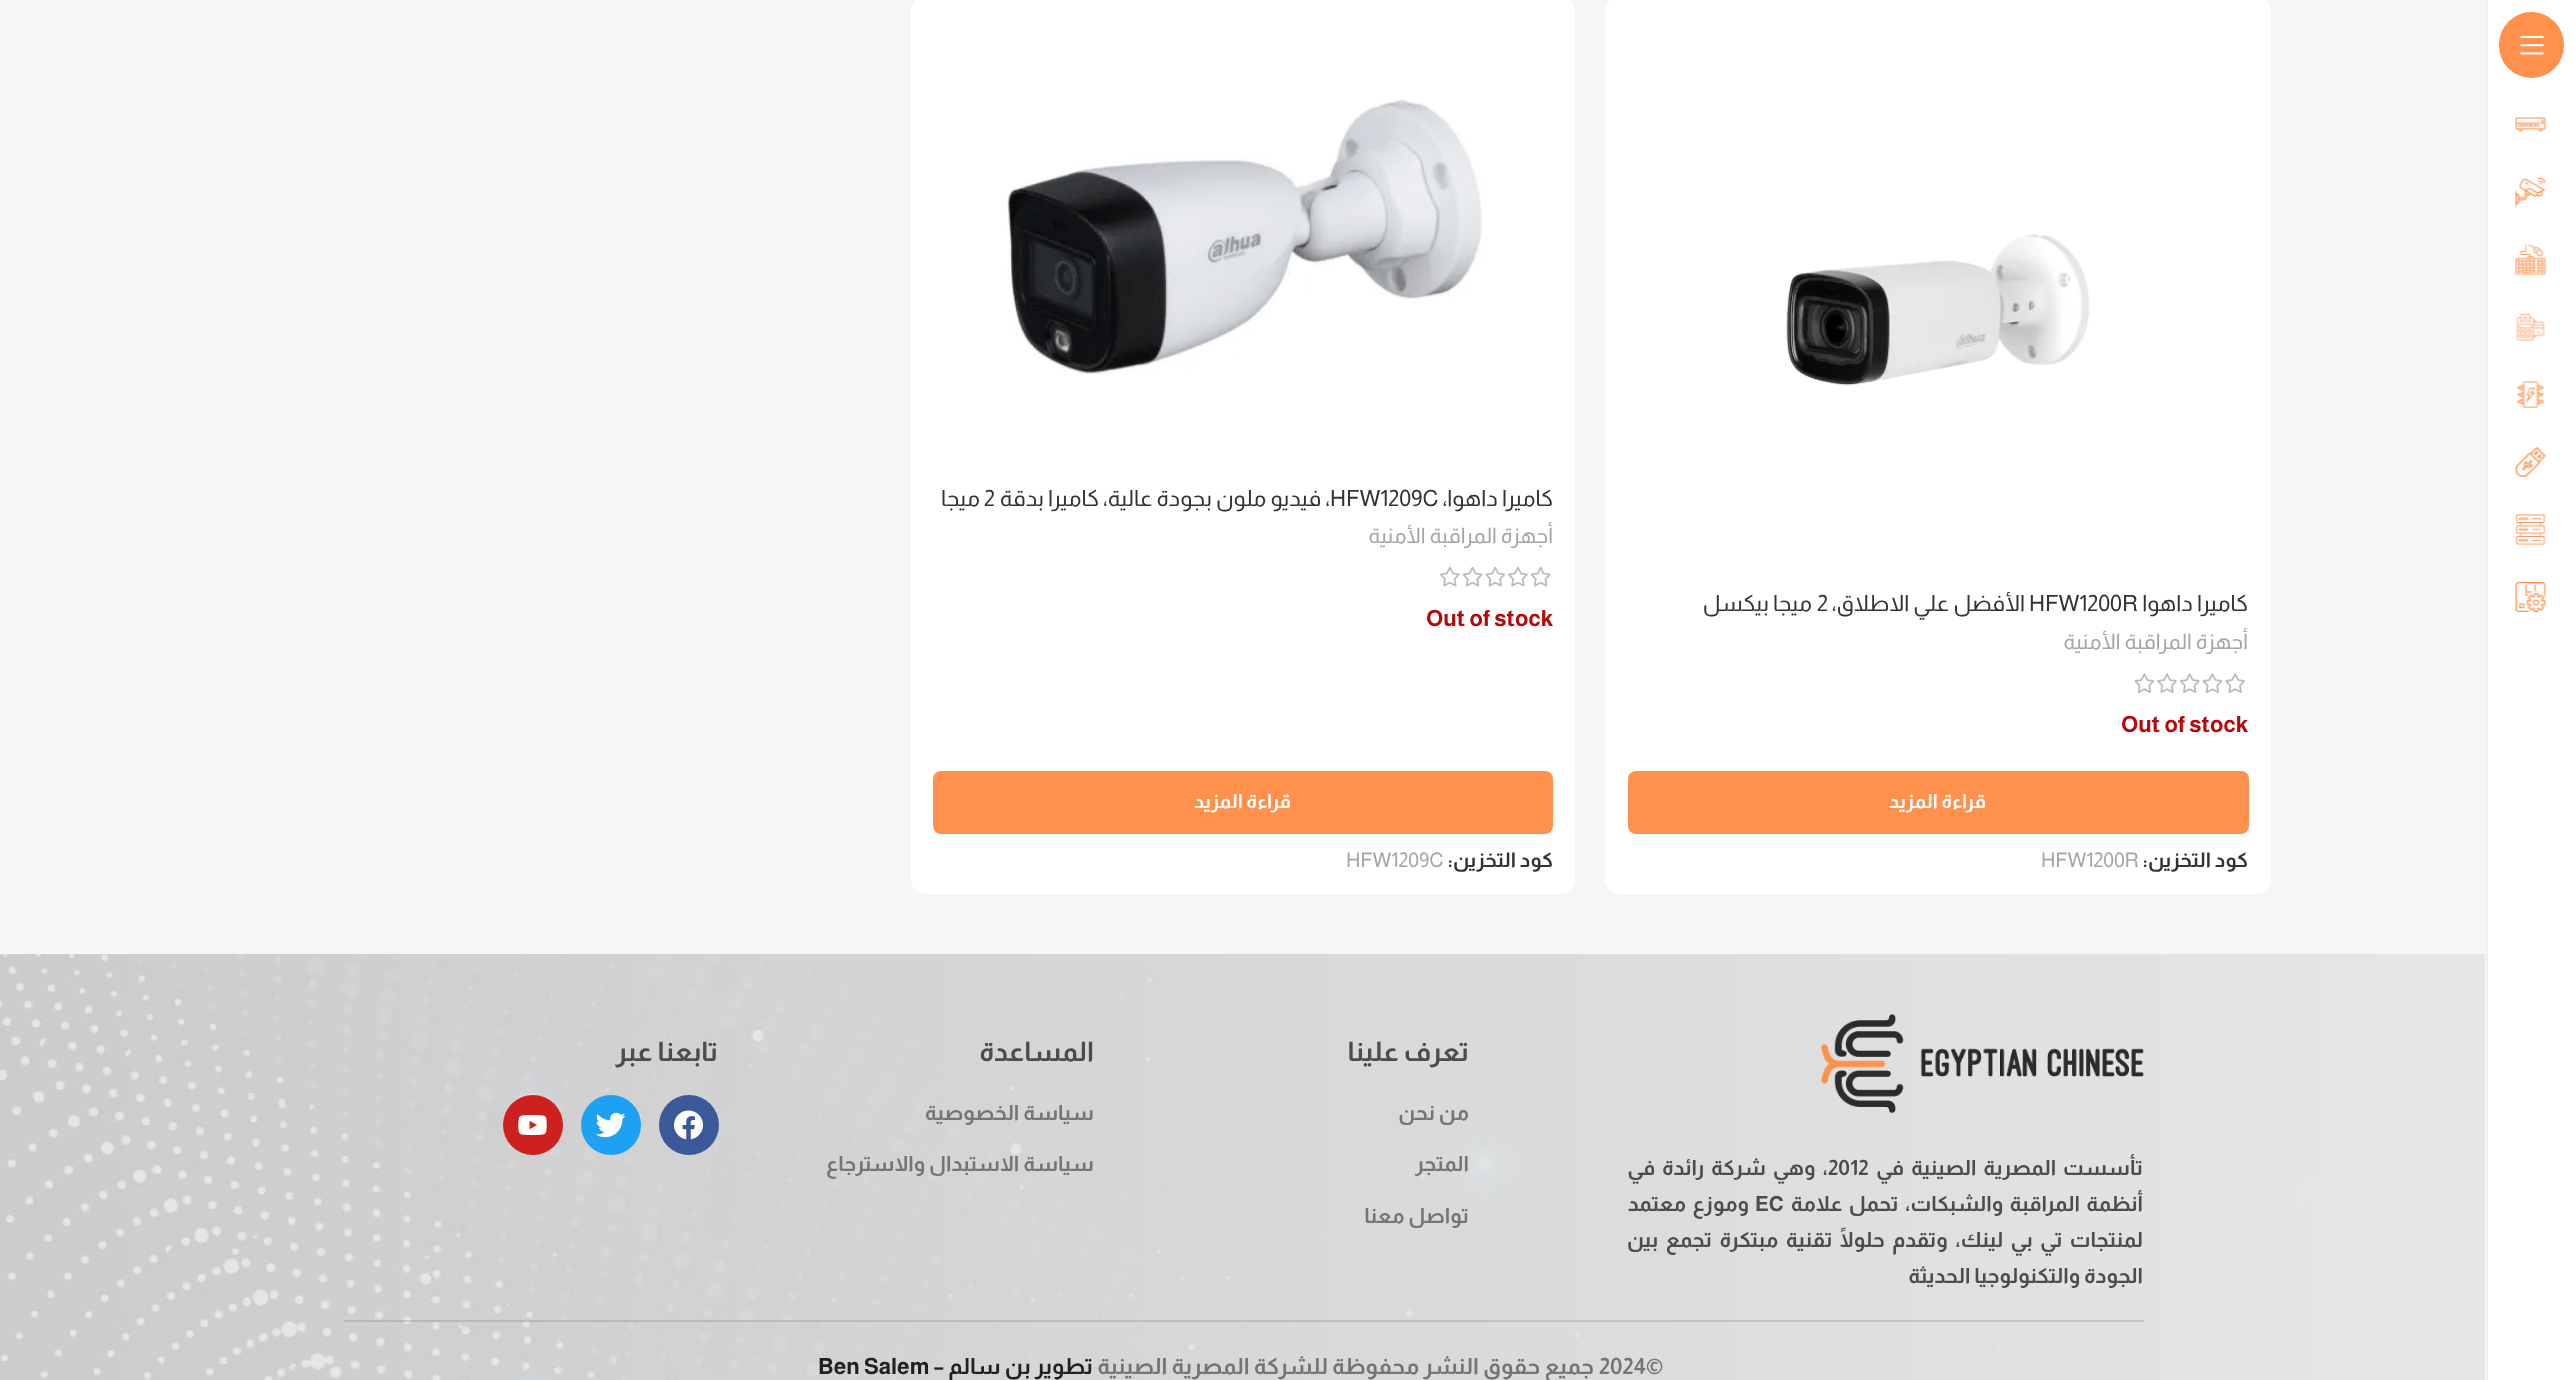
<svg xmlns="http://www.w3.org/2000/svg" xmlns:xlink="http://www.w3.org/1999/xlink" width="2575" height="1380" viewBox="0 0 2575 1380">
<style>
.cls-1{font:22.5px Almarai;direction:rtl;fill:#333333}
.cls-2{font:22.5px Almarai;fill:#333333}
.cls-3{font:21.4px Almarai;direction:rtl;fill:#a5a5a5}
.cls-4{font:bold 22.5px Almarai;fill:#b50808}
.cls-5{font:bold 19.5px Almarai;direction:rtl;fill:#ffffff}
.cls-6{font:bold 20.25px Almarai;direction:rtl;fill:#333333}
.cls-7{font:20.25px Almarai;fill:#a5a5a5}
.cls-8{font:bold 21px Almarai;direction:rtl;fill:#4c4c4c}
.cls-9{font:bold 21px Almarai;fill:#4c4c4c}
.cls-10{font:bold 27px Almarai;direction:rtl;fill:#4c4c4c}
.cls-11{font:bold 21px Almarai;direction:rtl;fill:#757575}
.cls-12{font:bold 22.5px Almarai;fill:#757575}
.cls-13{font:bold 22.5px Almarai;direction:rtl;fill:#757575}
.cls-14{font:bold 22.5px Almarai;direction:rtl;fill:#212121}
.cls-15{font:bold 22.5px Almarai;fill:#212121}
</style>
<rect width="100%" height="100%" fill="#ffffff"/>
<rect fill="#efefef" x="2486" y="0" width="2" height="1380"/>
<rect fill="#ff914d" x="2499" y="12" width="65" height="66" rx="32.5"/>
<image xlink:href="image0.png" x="2520" y="35" width="24" height="20"/>
<image xlink:href="image1.png" x="2515" y="117" width="31" height="15"/>
<image xlink:href="image2.png" x="2515" y="177" width="31" height="30"/>
<image xlink:href="image3.png" x="2515" y="244" width="31" height="31"/>
<image xlink:href="image4.png" x="2516" y="313" width="29" height="29"/>
<image xlink:href="image5.png" x="2517" y="381" width="28" height="27"/>
<image xlink:href="image6.png" x="2515" y="447" width="31" height="30"/>
<image xlink:href="image7.png" x="2515" y="514" width="31" height="31"/>
<image xlink:href="image8.png" x="2515" y="582" width="31" height="30"/>
<rect fill="#f6f6f6" x="0" y="0" width="2486" height="954"/>
<rect fill="#ffffff" x="1605" y="-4" width="666" height="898" rx="15"/>
<image xlink:href="image9.png" x="1786" y="234" width="304" height="152"/>
<image xlink:href="image10.png" x="2134" y="673" width="111" height="20"/>
<rect fill="#ff914d" x="1628" y="771" width="621" height="63" rx="8"/>
<rect fill="#ffffff" x="911" y="-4" width="664" height="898" rx="15"/>
<image xlink:href="image11.png" x="1007" y="99" width="476" height="276"/>
<image xlink:href="image12.png" x="1440" y="566" width="111" height="21"/>
<rect fill="#ff914d" x="933" y="771" width="620" height="63" rx="8"/>
<rect fill="#f5f5f5" x="2485" y="954" width="1" height="426"/>
<image xlink:href="image13.png" x="0" y="954" width="2485" height="426"/>
<image xlink:href="image14.png" x="1821" y="1014" width="323" height="99"/>
<circle fill="#3b5998" cx="689" cy="1125" r="30"/>
<image xlink:href="image15.png" x="674" y="1110" width="29" height="30"/>
<circle fill="#1da1f2" cx="611" cy="1125" r="30"/>
<image xlink:href="image16.png" x="596" y="1112" width="30" height="26"/>
<circle fill="#cd201f" cx="533" cy="1125" r="30"/>
<image xlink:href="image17.png" x="518" y="1115" width="29" height="20"/>
<rect fill="#757575" fill-opacity="0.25" x="344" y="1320" width="1800" height="2"/>
<text class="cls-1" x="2248" y="611">كاميرا داهوا</text>
<text class="cls-2" x="2029" y="611">HFW1200R</text>
<text class="cls-1" x="2025" y="611">الأفضل علي الاطلاق،</text>
<text class="cls-2" x="1817" y="611">2</text>
<text class="cls-1" x="1812" y="611">ميجا بيكسل</text>
<text class="cls-3" x="2248" y="649">أجهزة المراقبة الأمنية</text>
<text class="cls-4" x="2121" y="732">Out of stock</text>
<text class="cls-5" x="1986" y="808">قراءة المزيد</text>
<text class="cls-6" x="2248" y="867">كود التخزين:</text>
<text class="cls-7" x="2041" y="867">HFW1200R</text>
<text class="cls-1" x="1553" y="506">كاميرا داهوا،</text>
<text class="cls-2" x="1330" y="506">HFW1209C</text>
<text class="cls-1" x="1330" y="506">، فيديو ملون بجودة عالية، كاميرا بدقة</text>
<text class="cls-2" x="984" y="506">2</text>
<text class="cls-1" x="980" y="506">ميجا</text>
<text class="cls-3" x="1553" y="543">أجهزة المراقبة الأمنية</text>
<text class="cls-4" x="1426" y="626">Out of stock</text>
<text class="cls-5" x="1291" y="808">قراءة المزيد</text>
<text class="cls-6" x="1553" y="867">كود التخزين:</text>
<text class="cls-7" x="1346" y="867">HFW1209C</text>
<text class="cls-8" x="2143" y="1175" word-spacing="3">تأسست المصرية الصينية في</text>
<text class="cls-9" x="1828" y="1175">2012</text>
<text class="cls-8" x="1828" y="1175" word-spacing="3">، وهي شركة رائدة في</text>
<text class="cls-8" x="2143" y="1211" word-spacing="2.5">أنظمة المراقبة والشبكات، تحمل علامة</text>
<text class="cls-9" x="1755" y="1211">EC</text>
<text class="cls-8" x="1749" y="1211" word-spacing="2.5">وموزع معتمد</text>
<text class="cls-8"><tspan x="2143" y="1247" word-spacing="3.5">لمنتجات تي بي لينك، وتقدم حلولًا تقنية مبتكرة تجمع بين</tspan><tspan x="2143" y="1283">الجودة والتكنولوجيا الحديثة</tspan></text>
<text class="cls-10" x="1469" y="1061">تعرف علينا</text>
<text class="cls-11" x="1469" y="1120">من نحن</text>
<text class="cls-11" x="1469" y="1171">المتجر</text>
<text class="cls-11" x="1469" y="1223">تواصل معنا</text>
<text class="cls-10" x="1094" y="1061">المساعدة</text>
<text class="cls-11" x="1094" y="1120">سياسة الخصوصية</text>
<text class="cls-11" x="1094" y="1171">سياسة الاستبدال والاسترجاع</text>
<text class="cls-10" x="718" y="1061">تابعنا عبر</text>
<text class="cls-12" x="1599" y="1374">2024©</text>
<text class="cls-13" x="1594" y="1374">جميع حقوق النشر محفوظة للشركة المصرية الصينية</text>
<text class="cls-14" x="1093" y="1374">تطوير بن سالم –</text>
<text class="cls-15" x="818" y="1374">Ben Salem</text>
</svg>
